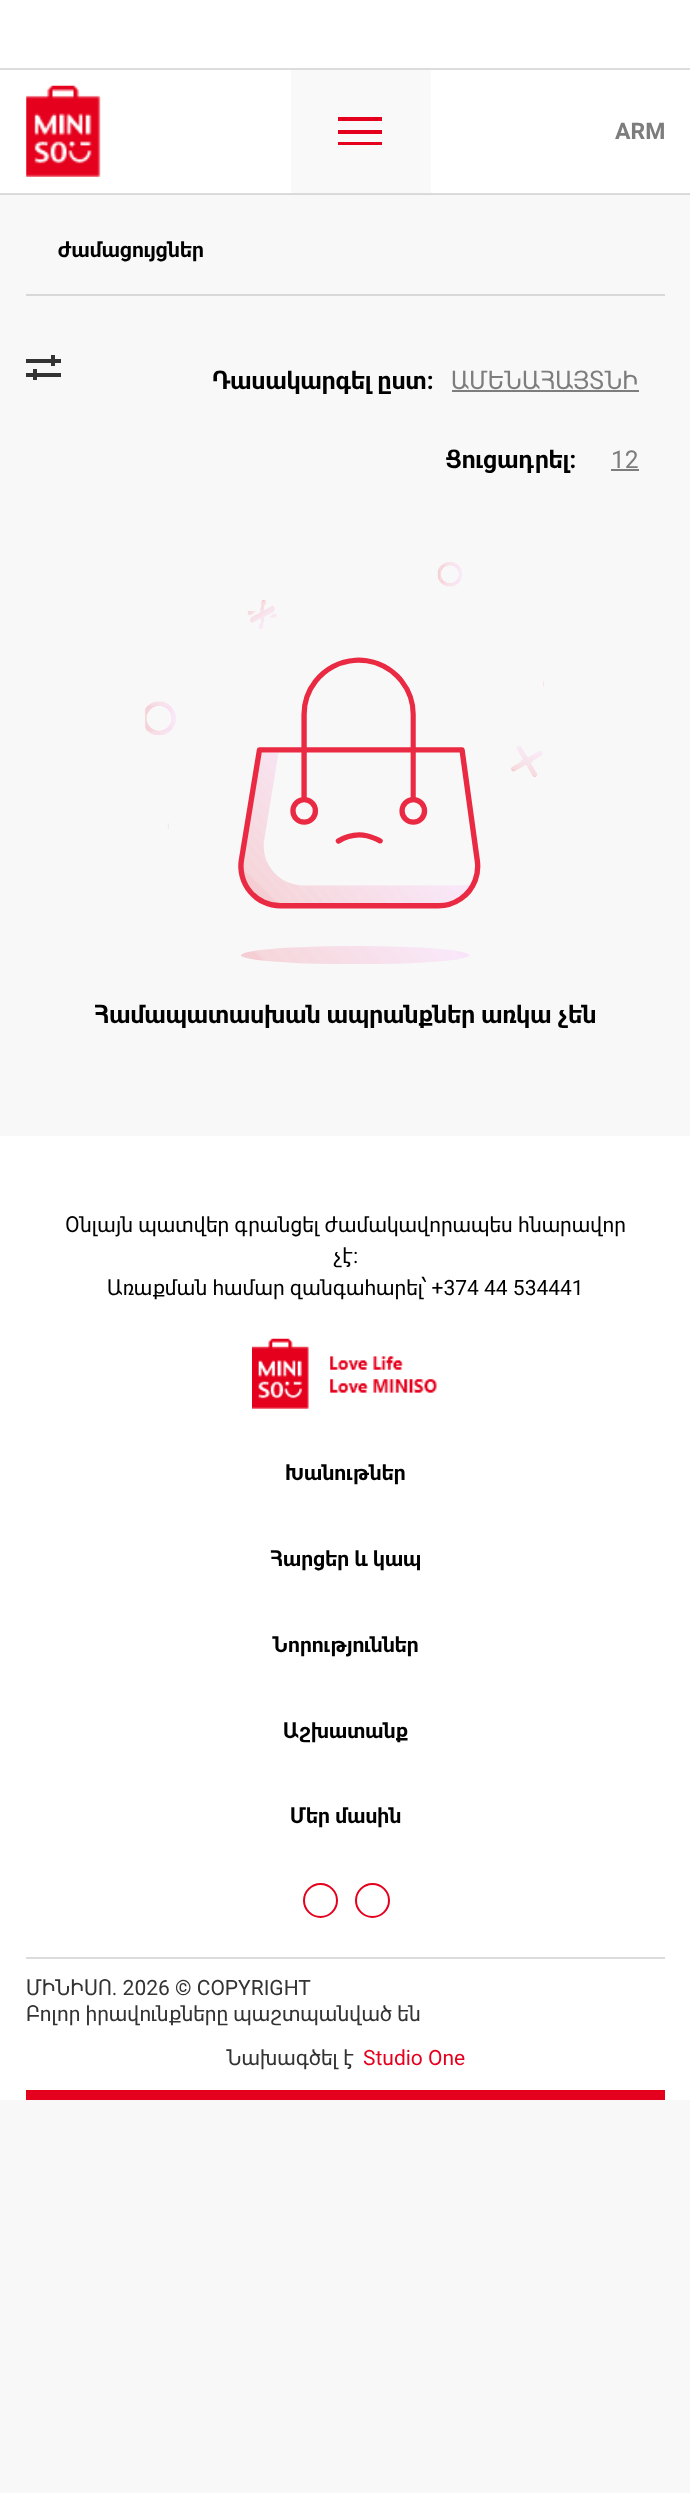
<svg xmlns="http://www.w3.org/2000/svg" xmlns:xlink="http://www.w3.org/1999/xlink" width="690" height="2493" viewBox="0 0 690 2493">
<style>
.cls-1{font:bold 23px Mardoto;fill:#7e7d7d}
.cls-2{font:bold 21px Mardoto;fill:#000000}
.cls-3{font:bold 24.5px Mardoto;fill:#000000}
.cls-4{font:24.5px Mardoto;fill:#7e7d7d}
.cls-5{font:21px Mardoto;fill:#000000}
.cls-6{font:21px Mardoto;fill:#333333}
.cls-7{font:21px Mardoto;fill:#e5001d}
</style>
<rect width="100%" height="100%" fill="#f8f8f8"/>
<rect fill="#d8d8d8" x="0" y="194" width="690" height="1"/>
<rect fill="#ffffff" x="0" y="0" width="690" height="68"/>
<rect fill="#dcdcdc" x="0" y="68" width="690" height="2"/>
<rect fill="#ffffff" x="0" y="70" width="690" height="123"/>
<rect fill="#dcdcdc" x="0" y="193" width="690" height="1"/>
<image xlink:href="image0.png" x="26" y="85" width="75" height="92"/>
<rect fill="#f9f9f9" x="291" y="70" width="140" height="123"/>
<rect fill="#e5001d" x="338" y="117" width="44" height="4"/>
<rect fill="#e5001d" x="338" y="130" width="44" height="4"/>
<rect fill="#e5001d" x="338" y="142" width="44" height="3"/>
<rect fill="#d8d8d8" x="26" y="294" width="639" height="2"/>
<rect fill="#333333" x="26" y="359" width="35" height="4"/>
<rect fill="#333333" x="26" y="373" width="35" height="4"/>
<rect fill="#333333" x="51" y="355" width="4" height="11"/>
<rect fill="#333333" x="33" y="369" width="4" height="11"/>
<rect fill="#7e7d7d" x="452" y="390" width="187" height="2"/>
<rect fill="#7e7d7d" x="611" y="469" width="28" height="2"/>
<image xlink:href="image1.png" x="145" y="562" width="399" height="402"/>
<rect fill="#ffffff" x="0" y="1136" width="690" height="964"/>
<rect fill="#dcdcdc" x="26" y="1957" width="639" height="2"/>
<image xlink:href="image2.png" x="252" y="1338" width="185" height="71"/>
<circle fill="none" stroke="#e5001d" stroke-width="2" cx="320.5" cy="1900.5" r="16.5"/>
<circle fill="none" stroke="#e5001d" stroke-width="2" cx="372.5" cy="1900.5" r="16.5"/>
<rect fill="#e5001d" x="26" y="2090" width="639" height="10"/>
<text class="cls-1" x="615" y="139">ARM</text>
<text class="cls-2" x="58" y="257">ժամացույցներ</text>
<text class="cls-3" x="212" y="389">Դասակարգել ըստ:</text>
<text class="cls-4" x="451" y="389">ԱՄԵՆԱՀԱՅՏՆԻ</text>
<text class="cls-3" x="445" y="468">Ցուցադրել։</text>
<text class="cls-4" x="611" y="468">12</text>
<text class="cls-3" x="94" y="1023">Համապատասխան ապրանքներ առկա չեն</text>
<text class="cls-5" x="65" y="1232">Օնլայն պատվեր գրանցել ժամակավորապես հնարավոր</text>
<text class="cls-5" x="333" y="1263">չէ։</text>
<text class="cls-5" x="107" y="1295">Առաքման համար զանգահարել՝ +374 44 534441</text>
<text class="cls-2" x="285" y="1480">Խանութներ</text>
<text class="cls-2" x="270" y="1566">Հարցեր և կապ</text>
<text class="cls-2" x="272" y="1652">Նորություններ</text>
<text class="cls-2" x="283" y="1738">Աշխատանք</text>
<text class="cls-2" x="290" y="1823">Մեր մասին</text>
<text class="cls-6"><tspan x="26" y="1995">ՄԻՆԻՍՈ. 2026 © COPYRIGHT</tspan><tspan x="26" y="2021">Բոլոր իրավունքները պաշտպանված են</tspan></text>
<text class="cls-6" x="226" y="2065">Նախագծել է</text>
<text class="cls-7" x="363" y="2065">Studio One</text>
</svg>
